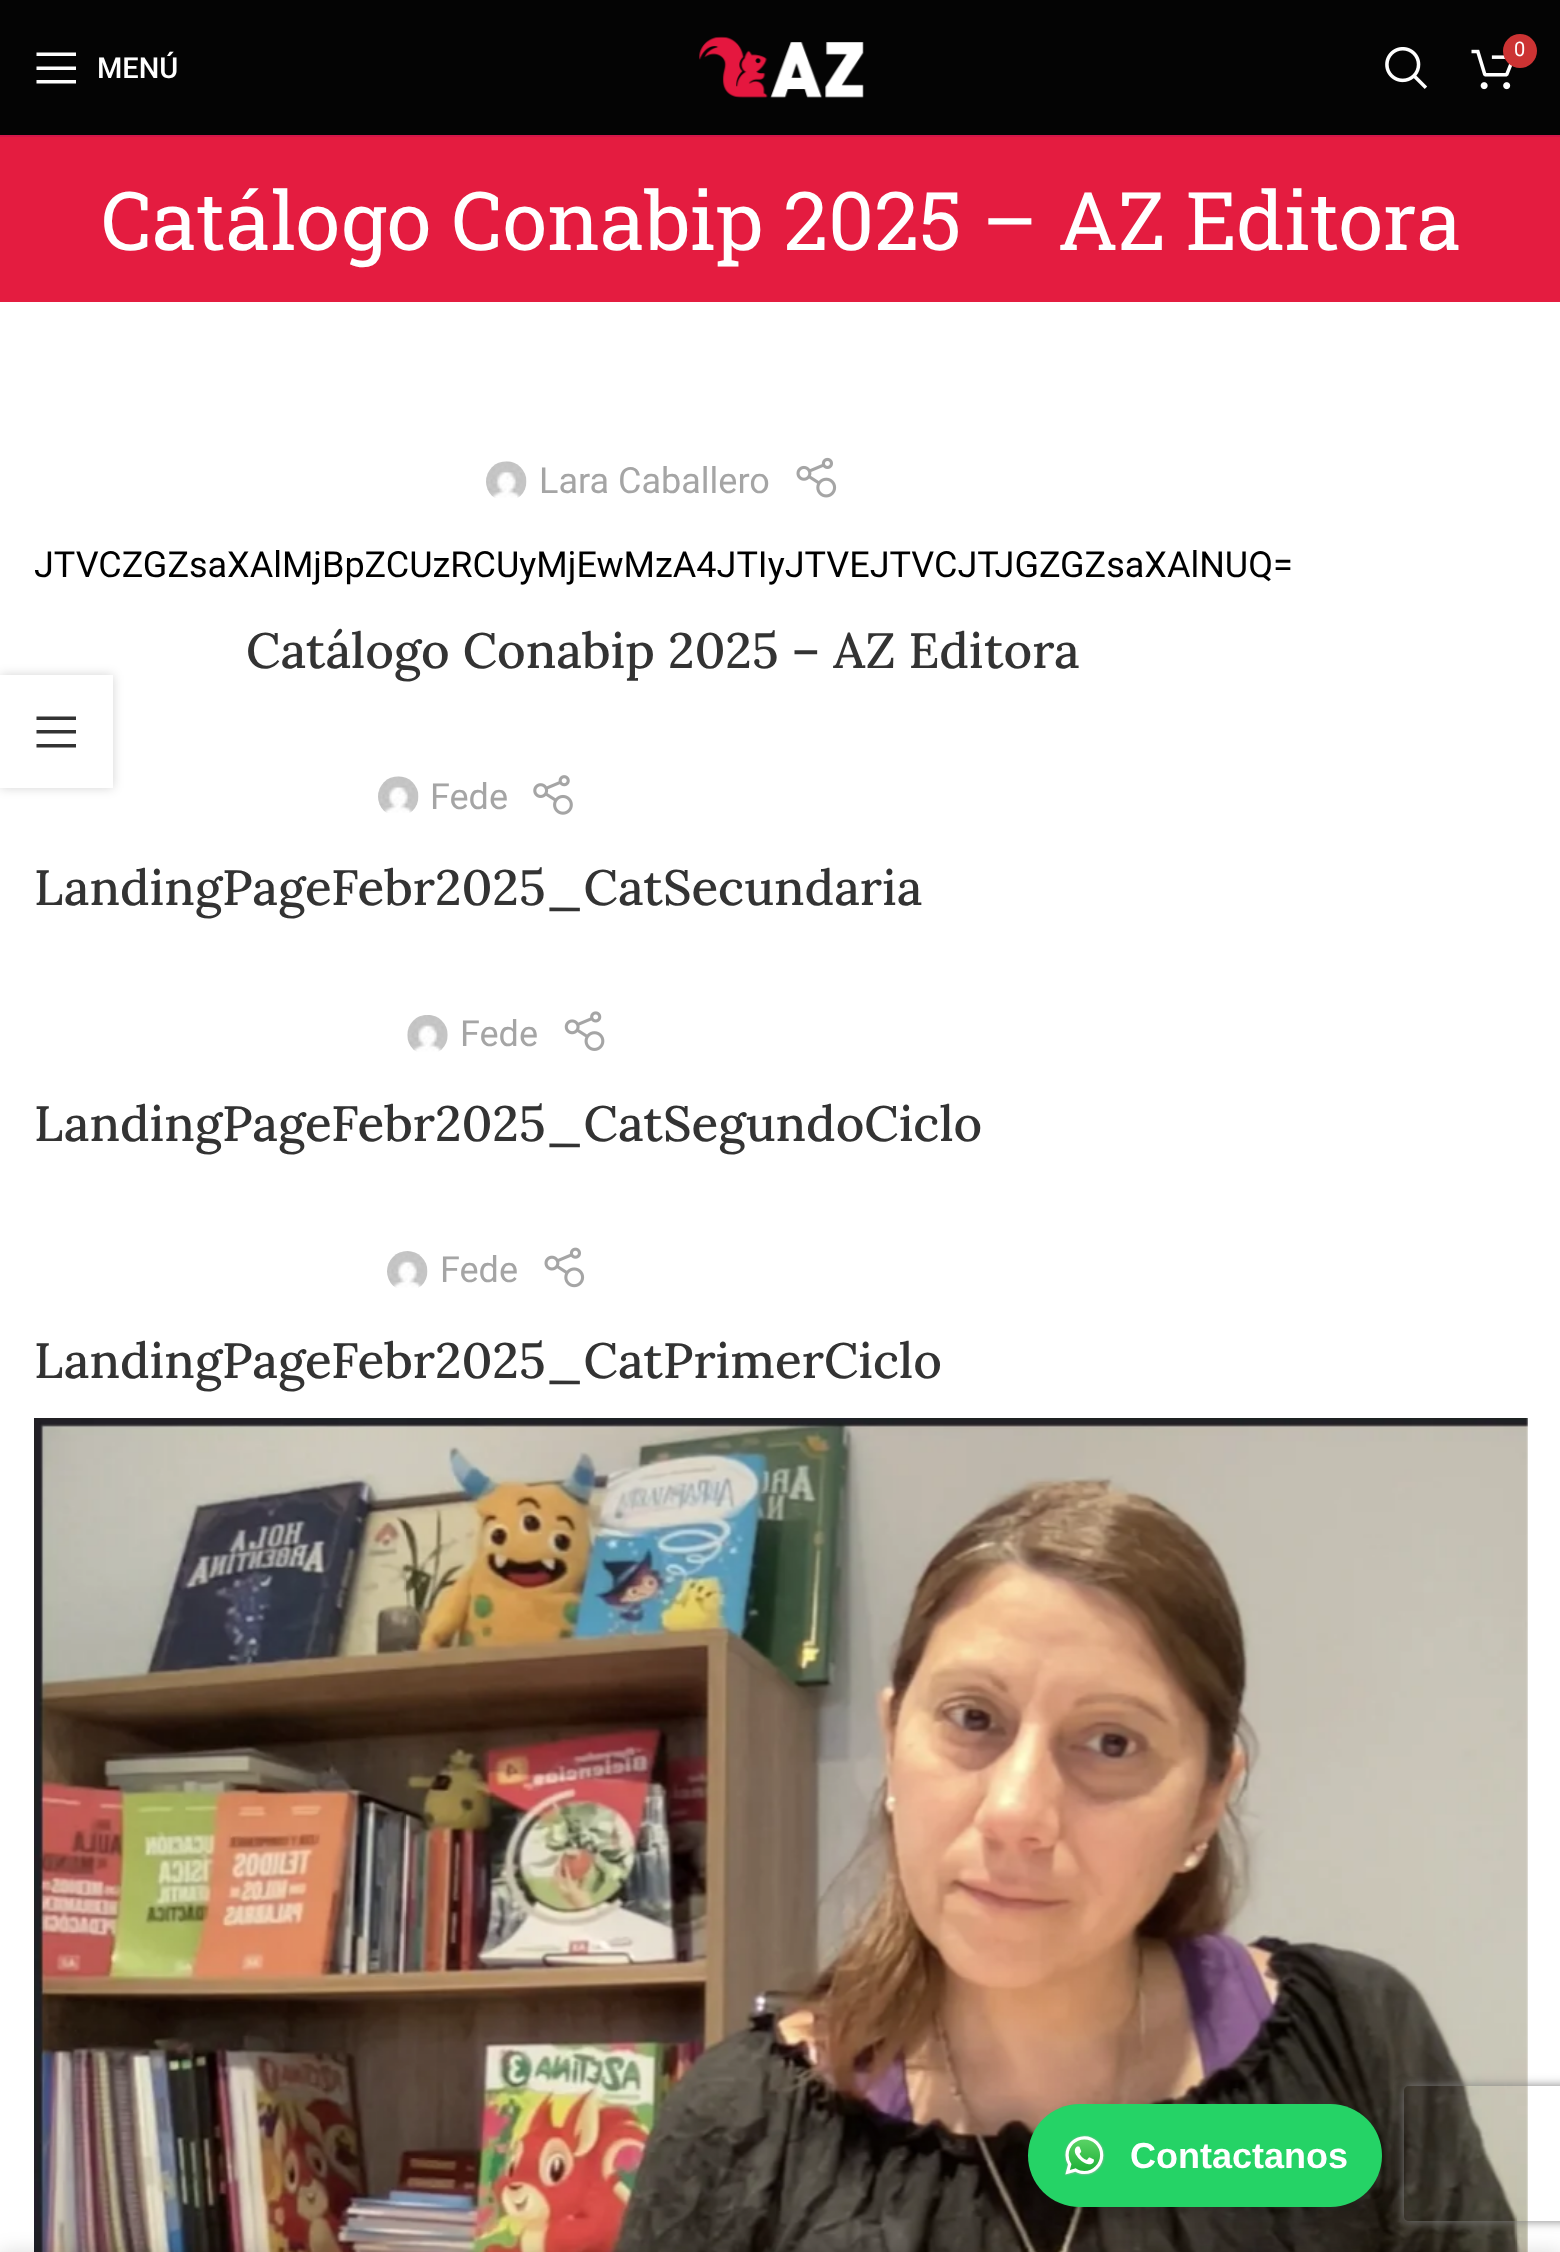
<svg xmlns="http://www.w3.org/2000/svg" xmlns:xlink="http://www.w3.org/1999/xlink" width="1560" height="2252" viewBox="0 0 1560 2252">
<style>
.cls-1{font:20px Roboto;fill:#ffffff}
.cls-2{font:500 29px Roboto;fill:#ffffff}
.cls-3{font:81px Roboto Slab;fill:#ffffff}
.cls-4{font:36px Roboto;fill:#a5a5a5}
.cls-5{font:36px Roboto;fill:#000000}
.cls-6{font:500 49.5px Lora;fill:#333333}
.cls-7{font:bold 36px Liberation Sans;fill:#ffffff}
</style>
<defs>
<clipPath id="clip1"><path d="M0 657H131V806H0ZM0 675H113V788H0Z" clip-rule="evenodd"/></clipPath>
<clipPath id="clip2"><path d="M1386 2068H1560V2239H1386ZM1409 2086H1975C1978 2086 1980 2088 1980 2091V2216C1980 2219 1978 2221 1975 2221H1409C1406 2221 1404 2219 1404 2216V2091C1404 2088 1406 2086 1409 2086Z" clip-rule="evenodd"/></clipPath>
</defs>
<rect width="100%" height="100%" fill="#ffffff"/>
<rect fill="#040404" x="0" y="0" width="1560" height="135"/>
<rect fill="#d3174a" x="0" y="135" width="1560" height="2"/>
<image xlink:href="image0.png" x="699" y="36" width="165" height="62"/>
<image xlink:href="image1.png" x="1385" y="47" width="43" height="42"/>
<image xlink:href="image2.png" x="1471" y="49" width="41" height="41"/>
<circle fill="#cc3333" cx="1520" cy="51" r="17"/>
<path fill="#ffffff" d="M36.5 56H76V52.5H36.5ZM36.5 70H76V66.5H36.5ZM36.5 83.5H76V80H36.5Z"/>
<rect fill="#e41c40" x="0" y="137" width="1560" height="165"/>
<image xlink:href="image3.png" x="486" y="461" width="41" height="37"/>
<image xlink:href="image4.png" x="796" y="457" width="41" height="41"/>
<image xlink:href="image5.png" x="378" y="776" width="41" height="37"/>
<image xlink:href="image6.png" x="533" y="775" width="40" height="40"/>
<image xlink:href="image7.png" x="407" y="1015" width="41" height="37"/>
<image xlink:href="image8.png" x="564" y="1011" width="41" height="40"/>
<image xlink:href="image9.png" x="387" y="1251" width="41" height="37"/>
<image xlink:href="image10.png" x="544" y="1247" width="41" height="41"/>
<image xlink:href="image11.png" x="34" y="1418" width="1494" height="834"/>
<g clip-path="url(#clip1)">
<rect fill="#000000" fill-opacity="0.17" filter="blur(5.5px)" x="0" y="675" width="113" height="113"/>
</g>
<rect fill="#ffffff" fill-opacity="0.9" x="0" y="675" width="113" height="113"/>
<path fill="#333333" d="M36.5 720H76V716.5H36.5ZM36.5 733.5H76V730H36.5ZM36.5 747.5H76V744H36.5Z"/>
<rect fill="#000000" fill-opacity="0.1" filter="blur(7px)" x="1028" y="2113" width="354" height="103" rx="51.5"/>
<rect fill="#25d366" x="1028" y="2104" width="354" height="103" rx="51.5"/>
<image xlink:href="image12.png" x="1064" y="2134" width="41" height="42"/>
<g clip-path="url(#clip2)">
<rect fill="#808080" filter="blur(5.5px)" x="1404" y="2086" width="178" height="135" rx="5"/>
</g>
<rect fill="#000000" fill-opacity="0.14" filter="blur(10px)" x="0" y="2252" width="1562" height="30"/>
<text class="cls-1" x="1514" y="56">0</text>
<text class="cls-2" x="97" y="78">MENÚ</text>
<text class="cls-3" x="101" y="250">Catálogo Conabip 2025 – AZ Editora</text>
<text class="cls-4" x="539" y="493">Lara Caballero</text>
<text class="cls-5" x="34" y="577">JTVCZGZsaXAlMjBpZCUzRCUyMjEwMzA4JTIyJTVEJTVCJTJGZGZsaXAlNUQ=</text>
<text class="cls-6" x="246" y="668">Catálogo Conabip 2025 – AZ Editora</text>
<text class="cls-4" x="430" y="809">Fede</text>
<text class="cls-6" x="34" y="905">LandingPageFebr2025_CatSecundaria</text>
<text class="cls-4" x="460" y="1046">Fede</text>
<text class="cls-6" x="34" y="1141">LandingPageFebr2025_CatSegundoCiclo</text>
<text class="cls-4" x="440" y="1282">Fede</text>
<text class="cls-6" x="34" y="1378">LandingPageFebr2025_CatPrimerCiclo</text>
<text class="cls-7" x="1130" y="2168">Contactanos</text>
</svg>
